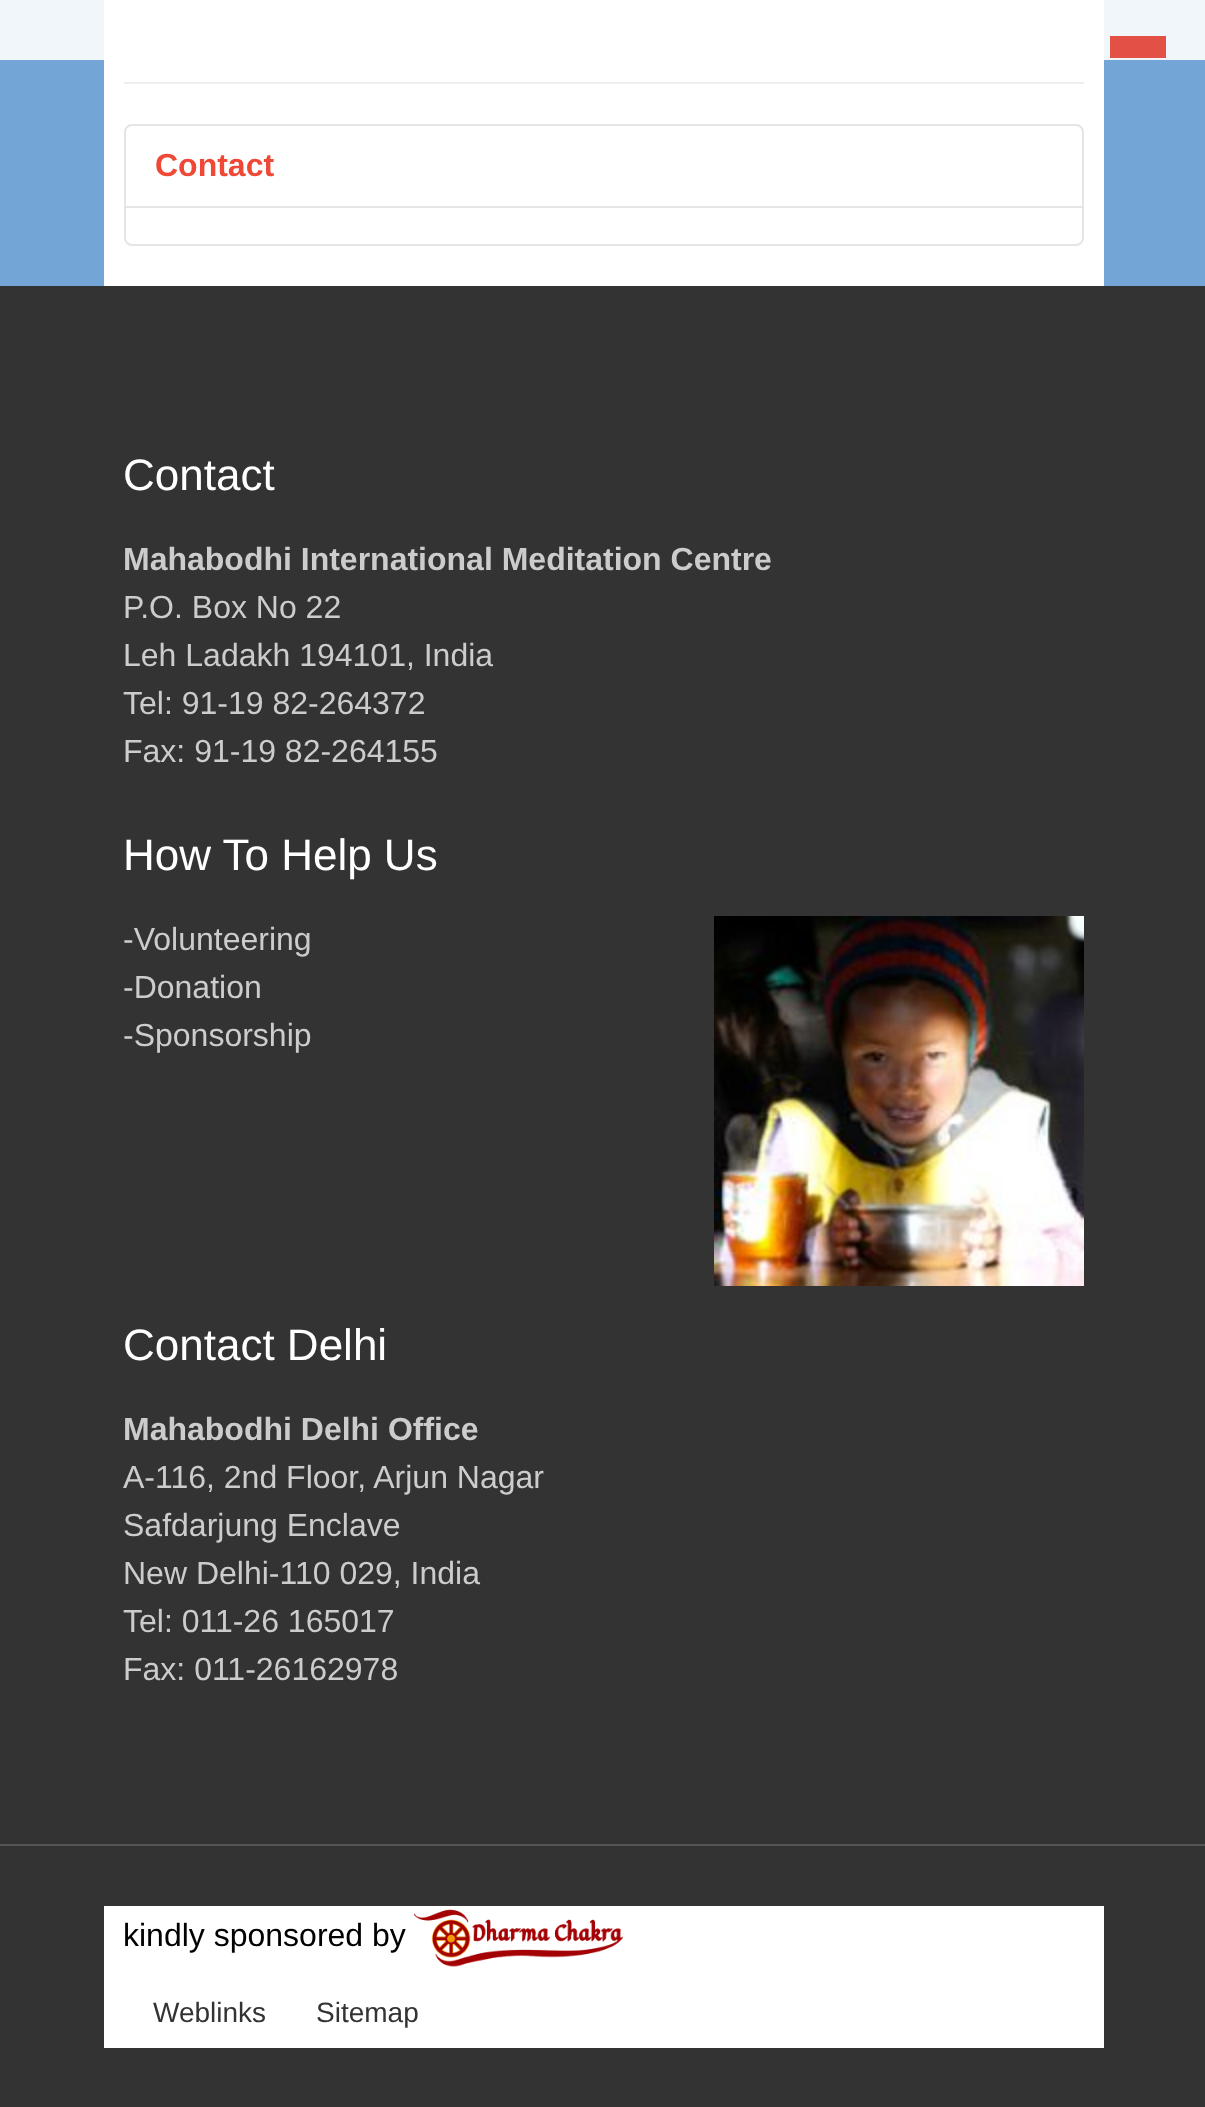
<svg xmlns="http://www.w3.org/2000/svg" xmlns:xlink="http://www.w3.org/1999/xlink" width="1205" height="2107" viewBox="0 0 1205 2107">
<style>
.cls-1{font:bold 32px Liberation Sans;fill:#ef4836}
.cls-2{font:44px Liberation Sans;fill:#ffffff}
.cls-3{font:bold 32px Liberation Sans;fill:#cccccc}
.cls-4{font:32px Liberation Sans;fill:#cccccc}
.cls-5{font:32px Liberation Sans;fill:#000000}
.cls-6{font:28px Liberation Sans;fill:#333333}
</style>
<rect width="100%" height="100%" fill="#73a5d7"/>
<rect fill="#f1f6fb" x="0" y="0" width="1205" height="60"/>
<rect fill="#e35146" x="1110" y="36" width="56" height="22"/>
<rect fill="#ffffff" x="104" y="0" width="1000" height="286"/>
<rect fill="#eeeeee" x="124" y="82" width="960" height="2"/>
<rect fill="none" stroke="#e5e5e5" stroke-width="2" x="125" y="125" width="958" height="120" rx="7"/>
<rect fill="#e5e5e5" x="126" y="206" width="956" height="2"/>
<rect fill="#333333" x="0" y="286" width="1205" height="1558"/>
<image xlink:href="image0.png" x="714" y="916" width="370" height="370"/>
<rect fill="#333333" x="0" y="1846" width="1205" height="261"/>
<rect fill="#555555" x="0" y="1844" width="1205" height="2"/>
<rect fill="#ffffff" x="104" y="1906" width="1000" height="142"/>
<image xlink:href="image1.png" x="414" y="1909" width="210" height="58"/>
<text class="cls-1" x="155" y="176">Contact</text>
<text class="cls-2" x="123" y="490">Contact</text>
<text class="cls-3" x="123" y="570">Mahabodhi International Meditation Centre</text>
<text class="cls-4"><tspan x="123" y="618">P.O. Box No 22</tspan><tspan x="123" y="666">Leh Ladakh 194101, India</tspan><tspan x="123" y="714">Tel: 91-19 82-264372</tspan><tspan x="123" y="762">Fax: 91-19 82-264155</tspan></text>
<text class="cls-2" x="123" y="870">How To Help Us</text>
<text class="cls-4"><tspan x="123" y="950">-Volunteering</tspan><tspan x="123" y="998">-Donation</tspan><tspan x="123" y="1046">-Sponsorship</tspan></text>
<text class="cls-2" x="123" y="1360">Contact Delhi</text>
<text class="cls-3" x="123" y="1440">Mahabodhi Delhi Office</text>
<text class="cls-4"><tspan x="123" y="1488">A-116, 2nd Floor, Arjun Nagar</tspan><tspan x="123" y="1536">Safdarjung Enclave</tspan><tspan x="123" y="1584">New Delhi-110 029, India</tspan><tspan x="123" y="1632">Tel: 011-26 165017</tspan><tspan x="123" y="1680">Fax: 011-26162978</tspan></text>
<text class="cls-5" x="123" y="1946">kindly sponsored by</text>
<text class="cls-6" x="153" y="2022">Weblinks</text>
<text class="cls-6" x="316" y="2022">Sitemap</text>
</svg>
